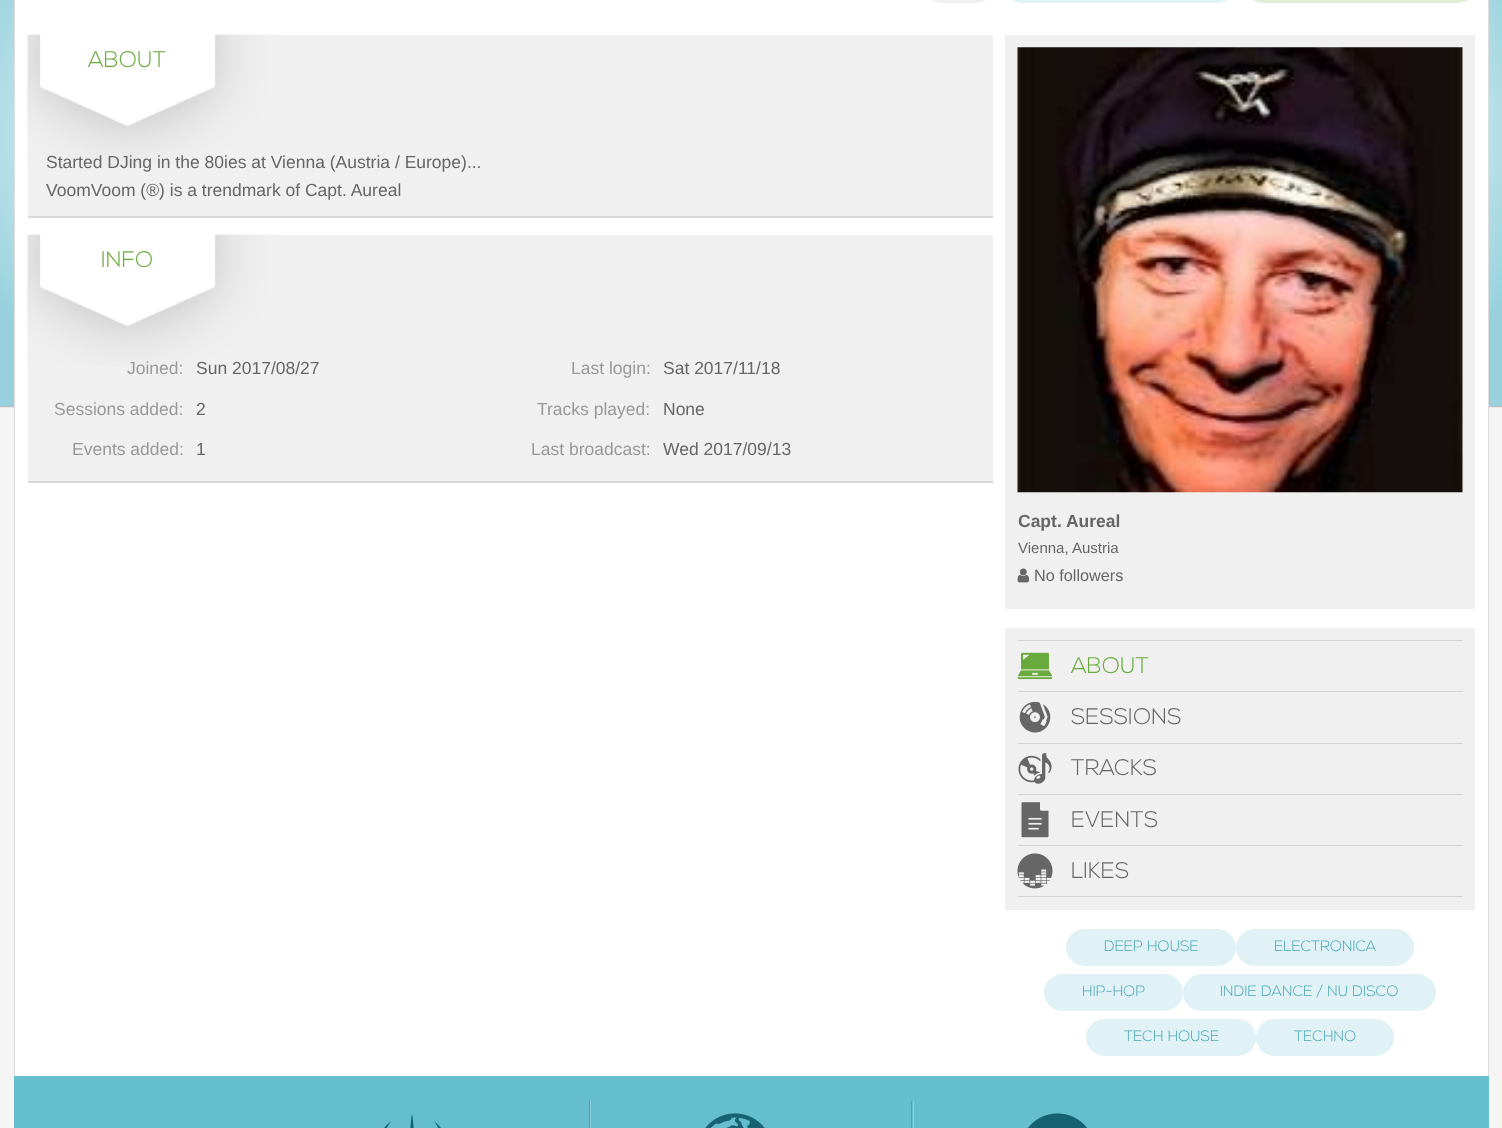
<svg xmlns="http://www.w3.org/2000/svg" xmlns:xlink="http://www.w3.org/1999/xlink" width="1502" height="1128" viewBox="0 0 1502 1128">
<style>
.cls-1{font:22.5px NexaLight;fill:#68aa3c}
.cls-2{font:17.5px Liberation Sans;fill:#666666}
.cls-3{font:17.5px Liberation Sans;fill:#999999}
.cls-4{font:bold 17.5px Liberation Sans;fill:#666666}
.cls-5{font:15px Liberation Sans;fill:#666666}
.cls-6{font:16.25px Liberation Sans;fill:#666666}
.cls-7{font:22.5px NexaLight;fill:#666666}
.cls-8{font:15px NexaLight;fill:#4ba7b7}
</style>
<rect width="100%" height="100%" fill="#f5f5f5"/>
<image xlink:href="image0.png" x="0" y="397" width="1502" height="11"/>
<image xlink:href="image1.png" x="0" y="0" width="1502" height="397"/>
<rect fill="#ffffff" x="15" y="0" width="1473" height="1076"/>
<rect fill="#dddddd" x="1488" y="0" width="1" height="1076"/>
<rect fill="#dddddd" x="14" y="0" width="1" height="1076"/>
<rect fill="#f0f0f0" x="925" y="-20" width="68" height="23" rx="20"/>
<rect fill="#e0f2f6" x="1005" y="-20" width="229" height="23" rx="20"/>
<rect fill="#e1efd8" x="1246" y="-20" width="229" height="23" rx="20"/>
<rect fill="#d9d9d9" filter="blur(0.5px)" x="28" y="36" width="965" height="182"/>
<rect fill="#f0f0f0" x="28" y="35" width="965" height="181"/>
<image xlink:href="image2.png" x="27" y="34" width="250" height="132"/>
<rect fill="#d9d9d9" filter="blur(0.5px)" x="28" y="236" width="965" height="247"/>
<rect fill="#f0f0f0" x="28" y="235" width="965" height="246"/>
<image xlink:href="image2.png" x="27" y="234" width="250" height="132"/>
<rect fill="#f0f0f0" x="1005" y="35" width="470" height="574"/>
<image xlink:href="image3.png" x="1017" y="47" width="446" height="446"/>
<image xlink:href="image4.png" x="1017" y="568" width="13" height="15"/>
<rect fill="#f0f0f0" x="1005" y="628" width="470" height="282"/>
<rect fill="#d4d4d4" x="1018" y="640" width="445" height="1"/>
<rect fill="#d4d4d4" x="1018" y="691" width="445" height="1"/>
<image xlink:href="image5.png" x="1017" y="652" width="36" height="28"/>
<rect fill="#d4d4d4" x="1018" y="743" width="445" height="1"/>
<image xlink:href="image6.png" x="1019" y="701" width="32" height="32"/>
<rect fill="#d4d4d4" x="1018" y="794" width="445" height="1"/>
<image xlink:href="image7.png" x="1018" y="753" width="34" height="31"/>
<rect fill="#d4d4d4" x="1018" y="845" width="445" height="1"/>
<image xlink:href="image8.png" x="1021" y="802" width="28" height="36"/>
<rect fill="#d4d4d4" x="1018" y="896" width="445" height="1"/>
<image xlink:href="image9.png" x="1017" y="853" width="36" height="36"/>
<rect fill="#e0f2f5" x="1066" y="929" width="170" height="37" rx="18.5"/>
<rect fill="#e0f2f5" x="1236" y="929" width="178" height="37" rx="18.5"/>
<rect fill="#e0f2f5" x="1044" y="974" width="139" height="37" rx="18.5"/>
<rect fill="#e0f2f5" x="1183" y="974" width="253" height="37" rx="18.5"/>
<rect fill="#e0f2f5" x="1086" y="1019" width="170" height="37" rx="18.5"/>
<rect fill="#e0f2f5" x="1256" y="1019" width="138" height="37" rx="18.5"/>
<rect fill="#65bece" x="14" y="1076" width="1475" height="52"/>
<rect fill="#4ca4b3" x="589" y="1101" width="1" height="27"/>
<image xlink:href="image10.png" x="384" y="1115" width="57" height="13"/>
<rect fill="#4ca4b3" x="911" y="1101" width="1" height="27"/>
<rect fill="#8cceda" x="590" y="1101" width="1" height="27"/>
<image xlink:href="image11.png" x="705" y="1113" width="60" height="15"/>
<rect fill="#8cceda" x="913" y="1101" width="1" height="27"/>
<image xlink:href="image12.png" x="1028" y="1113" width="59" height="15"/>
<text class="cls-1" x="88" y="67">ABOUT</text>
<text class="cls-2"><tspan x="46" y="168">Started DJing in the 80ies at Vienna (Austria / Europe)...</tspan><tspan x="46" y="196">VoomVoom (®) is a trendmark of Capt. Aureal</tspan></text>
<text class="cls-1" x="101" y="267">INFO</text>
<text class="cls-3" x="127" y="374">Joined:</text>
<text class="cls-2" x="196" y="374">Sun 2017/08/27</text>
<text class="cls-3" x="54" y="415">Sessions added:</text>
<text class="cls-2" x="196" y="415">2</text>
<text class="cls-3" x="72" y="455">Events added:</text>
<text class="cls-2" x="196" y="455">1</text>
<text class="cls-3" x="571" y="374">Last login:</text>
<text class="cls-2" x="663" y="374">Sat 2017/11/18</text>
<text class="cls-3" x="537" y="415">Tracks played:</text>
<text class="cls-2" x="663" y="415">None</text>
<text class="cls-3" x="531" y="455">Last broadcast:</text>
<text class="cls-2" x="663" y="455">Wed 2017/09/13</text>
<text class="cls-4" x="1018" y="527">Capt. Aureal</text>
<text class="cls-5" x="1018" y="553">Vienna, Austria</text>
<text class="cls-6" x="1034" y="581">No followers</text>
<text class="cls-1" x="1071" y="673">ABOUT</text>
<text class="cls-7" x="1071" y="724">SESSIONS</text>
<text class="cls-7" x="1071" y="775">TRACKS</text>
<text class="cls-7" x="1071" y="827">EVENTS</text>
<text class="cls-7" x="1071" y="878">LIKES</text>
<text class="cls-8" x="1104" y="951">DEEP HOUSE</text>
<text class="cls-8" x="1274" y="951">ELECTRONICA</text>
<text class="cls-8" x="1082" y="996">HIP-HOP</text>
<text class="cls-8" x="1220" y="996">INDIE DANCE / NU DISCO</text>
<text class="cls-8" x="1124" y="1041">TECH HOUSE</text>
<text class="cls-8" x="1294" y="1041">TECHNO</text>
</svg>
